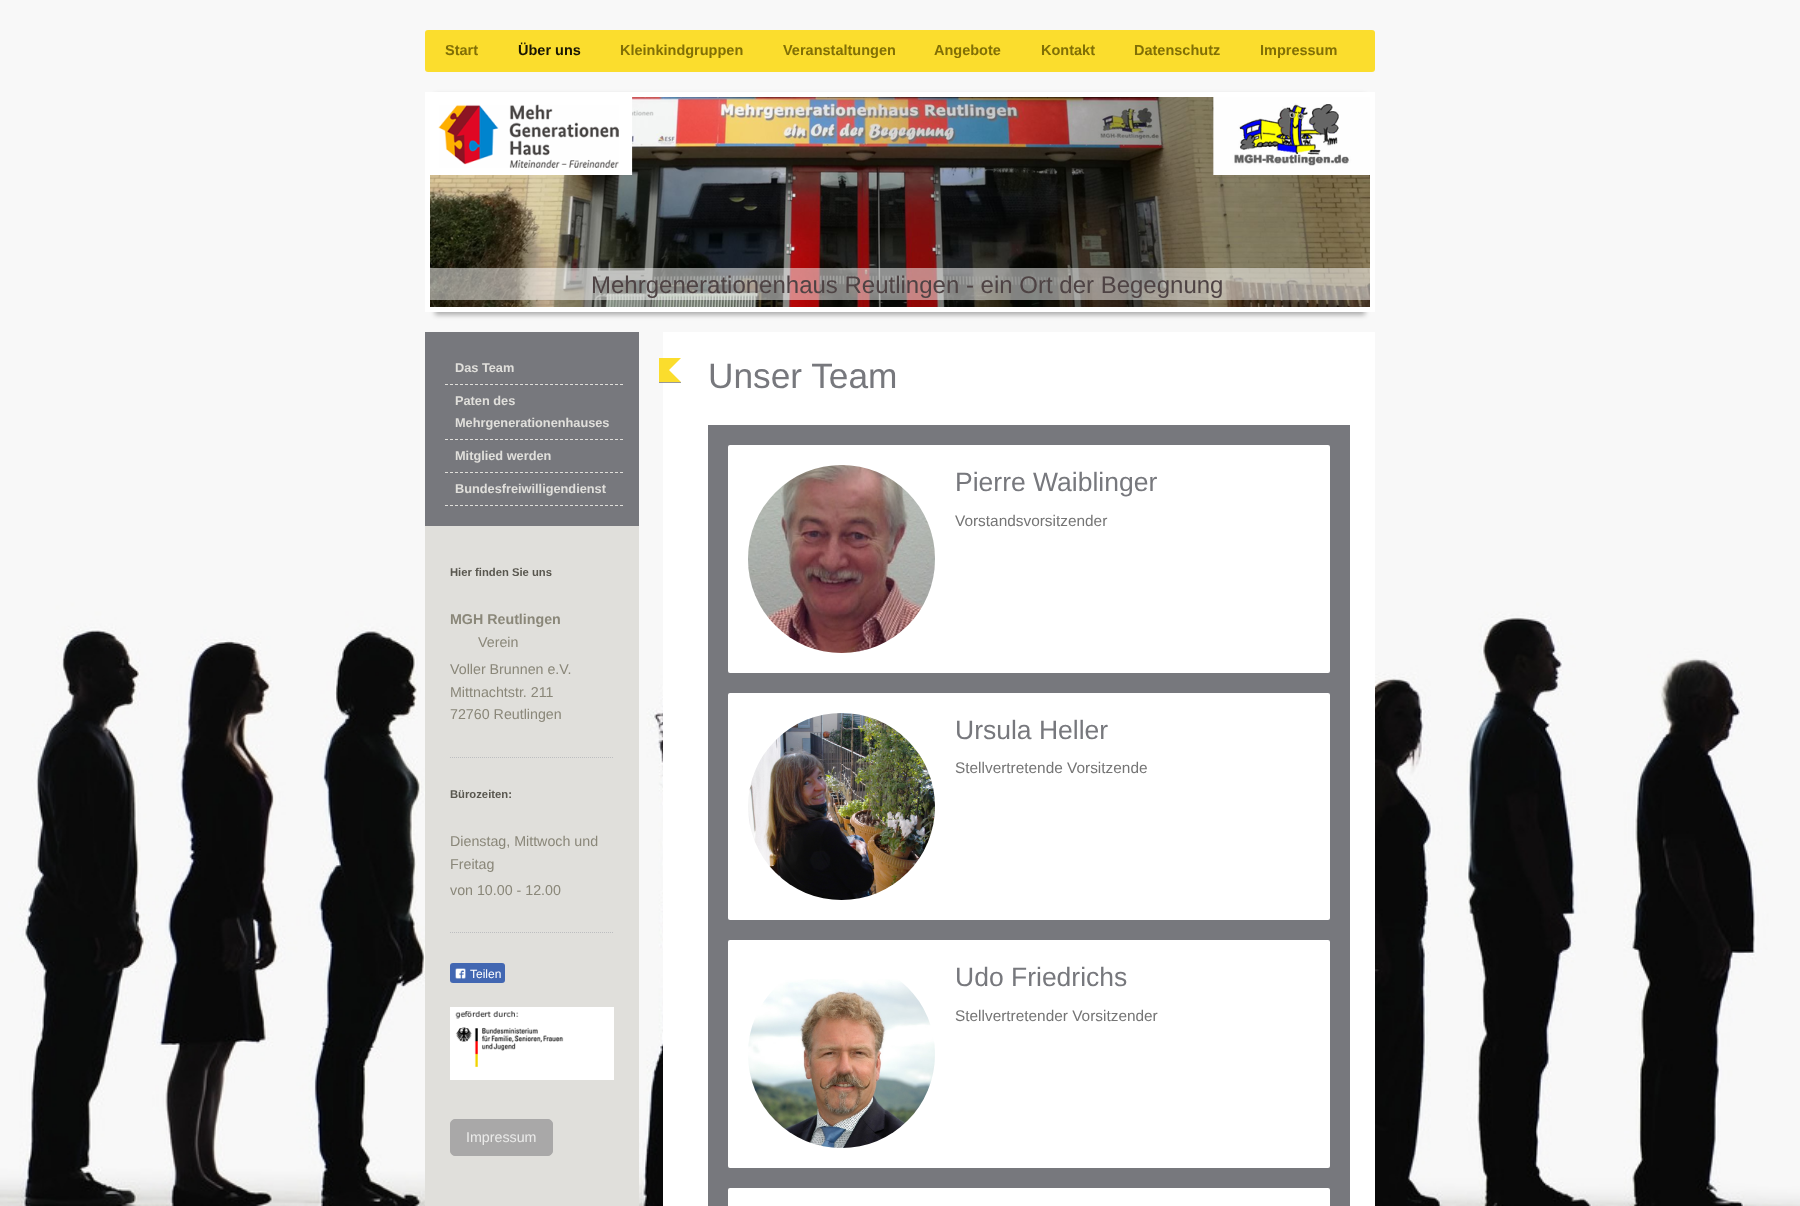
<!DOCTYPE html>
<meta charset="utf-8">
<style>body { margin: 0 } canvas { display: block }</style>
<canvas id="canvas" width="1800" height="1206"></canvas>
<script type="module">
  const canvas = document.getElementById("canvas");
  const ctx = canvas.getContext("2d");
  ctx.miterLimit = 4;
  ctx.fontKerning = "normal";
  async function loadImage(src) {
    const img = new Image();
    img.src = src;
    await img.decode();
    return img;
  }

  ctx.fillStyle = "#ffffff";
  ctx.fillRect(0, 0, 1800, 1206);
  ctx.drawImage(await loadImage("img1.png"), 0, 0, 1800, 1206);
  ctx.fillStyle = "#fbdd2d";
  ctx.beginPath();
  ctx.roundRect(425, 30, 950, 42, 3);
  ctx.fill();
  ctx.font = "bold 14.5px Liberation Sans";
  ctx.fillStyle = "#816f06";
  ctx.fillText("Start", 445, 55);
  ctx.fillStyle = "#191605";
  ctx.fillText("Über uns", 518, 55);
  ctx.fillStyle = "#816f06";
  ctx.fillText("Kleinkindgruppen", 620, 55);
  ctx.fillText("Veranstaltungen", 783, 55);
  ctx.fillText("Angebote", 934, 55);
  ctx.fillText("Kontakt", 1041, 55);
  ctx.fillText("Datenschutz", 1134, 55);
  ctx.fillText("Impressum", 1260, 55);
  ctx.fillStyle = "rgba(0, 0, 0, 0.3)";
  ctx.filter = "blur(2.5px)";
  ctx.beginPath();
  ctx.rect(435, 95, 930, 220);
  ctx.fill();
  ctx.filter = "none";
  ctx.strokeStyle = "#ffffff";
  ctx.lineWidth = 5;
  ctx.strokeRect(427.5, 94.5, 945, 215);
  ctx.drawImage(await loadImage("img2.png"), 430, 97, 940, 210);
  ctx.drawImage(await loadImage("img3.png"), 430, 97, 940, 78);
  ctx.fillStyle = "rgba(255, 255, 255, 0.5)";
  ctx.fillRect(430, 268, 940, 32);
  ctx.font = "24px Liberation Sans";
  ctx.fillStyle = "#4e4344";
  ctx.fillText("Mehrgenerationenhaus Reutlingen - ein Ort der Begegnung", 591, 293);
  ctx.fillStyle = "#77787d";
  ctx.fillRect(425, 332, 214, 194);
  ctx.beginPath();
  ctx.moveTo(445, 384.5);
  ctx.lineTo(623, 384.5);
  ctx.strokeStyle = "#e0dfdb";
  ctx.lineWidth = 1;
  ctx.setLineDash([3, 2]);
  ctx.stroke();
  ctx.font = "bold 12.75px Liberation Sans";
  ctx.fillStyle = "#e0dfdb";
  ctx.fillText("Das Team", 455, 372);
  ctx.beginPath();
  ctx.moveTo(445, 439.5);
  ctx.lineTo(623, 439.5);
  ctx.stroke();
  ctx.fillText("Paten des", 455, 405);
  ctx.fillText("Mehrgenerationenhauses", 455, 427);
  ctx.beginPath();
  ctx.moveTo(445, 472.5);
  ctx.lineTo(623, 472.5);
  ctx.stroke();
  ctx.fillText("Mitglied werden", 455, 460);
  ctx.beginPath();
  ctx.moveTo(445, 505.5);
  ctx.lineTo(623, 505.5);
  ctx.stroke();
  ctx.fillText("Bundesfreiwilligendienst", 455, 493);
  ctx.fillRect(425, 526, 214, 680);
  ctx.font = "bold 11.25px Liberation Sans";
  ctx.fillStyle = "#59574f";
  ctx.fillText("Hier finden Sie uns", 450, 576);
  ctx.font = "bold 14.25px Liberation Sans";
  ctx.fillStyle = "#8a8779";
  ctx.fillText("MGH Reutlingen", 450, 624);
  ctx.font = "14.25px Liberation Sans";
  ctx.fillText("Verein", 478, 647);
  ctx.fillText("Voller Brunnen e.V.", 450, 674);
  ctx.fillText("Mittnachtstr. 211", 450, 697);
  ctx.fillText("72760 Reutlingen", 450, 719);
  ctx.beginPath();
  ctx.moveTo(450, 757.5);
  ctx.lineTo(614, 757.5);
  ctx.strokeStyle = "#bdbec0";
  ctx.setLineDash([1, 1]);
  ctx.stroke();
  ctx.font = "bold 11.25px Liberation Sans";
  ctx.fillStyle = "#59574f";
  ctx.fillText("Bürozeiten:", 450, 798);
  ctx.font = "14.25px Liberation Sans";
  ctx.fillStyle = "#8a8779";
  ctx.fillText("Dienstag, Mittwoch und", 450, 846);
  ctx.fillText("Freitag", 450, 869);
  ctx.fillText("von 10.00 - 12.00", 450, 895);
  ctx.beginPath();
  ctx.moveTo(450, 932.5);
  ctx.lineTo(614, 932.5);
  ctx.stroke();
  ctx.fillStyle = "#4267b2";
  ctx.beginPath();
  ctx.roundRect(450, 963, 55, 20, 3);
  ctx.fill();
  ctx.drawImage(await loadImage("img4.png"), 455, 968, 11, 11);
  ctx.font = "12px Liberation Sans";
  ctx.fillStyle = "#ffffff";
  ctx.fillText("Teilen", 470, 978);
  ctx.drawImage(await loadImage("img5.png"), 450, 1007, 164, 73);
  ctx.fillStyle = "#a9a8a8";
  ctx.beginPath();
  ctx.roundRect(450.5, 1119.5, 102, 36, 4.5);
  ctx.fill();
  ctx.strokeStyle = "#a9a8a8";
  ctx.setLineDash([]);
  ctx.stroke();
  ctx.font = "14.25px Liberation Sans";
  ctx.fillStyle = "#ebebea";
  ctx.fillText("Impressum", 466, 1142);
  ctx.fillStyle = "#ffffff";
  ctx.fillRect(663, 332, 712, 874);
  ctx.fillStyle = "rgba(0, 0, 0, 0.4)";
  ctx.fillRect(659, 382, 22, 1);
  ctx.fillStyle = "#fbdd2d";
  ctx.beginPath();
  ctx.moveTo(659, 358);
  ctx.lineTo(681, 358);
  ctx.lineTo(669, 370);
  ctx.closePath();
  ctx.moveTo(681, 382);
  ctx.lineTo(659, 382);
  ctx.lineTo(669, 370);
  ctx.closePath();
  ctx.fill();
  ctx.fillRect(659, 358, 10, 24);
  ctx.font = "35.25px Liberation Sans";
  ctx.fillStyle = "#77787d";
  ctx.fillText("Unser Team", 708, 388);
  ctx.fillRect(708, 425, 642, 781);
  ctx.fillStyle = "#ffffff";
  ctx.beginPath();
  ctx.roundRect(728, 445, 602, 228, 2);
  ctx.fill();
  ctx.drawImage(await loadImage("img6.png"), 748, 465, 187, 188);
  ctx.font = "26.5px Liberation Sans";
  ctx.fillStyle = "#77787d";
  ctx.fillText("Pierre Waiblinger", 955, 491);
  ctx.font = "15.4px Liberation Sans";
  ctx.fillStyle = "#757575";
  ctx.fillText("Vorstandsvorsitzender", 955, 526);
  ctx.fillStyle = "#ffffff";
  ctx.beginPath();
  ctx.roundRect(728, 693, 602, 227, 2);
  ctx.fill();
  ctx.drawImage(await loadImage("img7.png"), 748, 713, 187, 187);
  ctx.font = "26.5px Liberation Sans";
  ctx.fillStyle = "#77787d";
  ctx.fillText("Ursula Heller", 955, 739);
  ctx.font = "15.4px Liberation Sans";
  ctx.fillStyle = "#757575";
  ctx.fillText("Stellvertretende Vorsitzende", 955, 773);
  ctx.fillStyle = "#ffffff";
  ctx.beginPath();
  ctx.roundRect(728, 940, 602, 228, 2);
  ctx.fill();
  ctx.drawImage(await loadImage("img8.png"), 748, 979, 187, 169);
  ctx.font = "26.5px Liberation Sans";
  ctx.fillStyle = "#77787d";
  ctx.fillText("Udo Friedrichs", 955, 986);
  ctx.font = "15.4px Liberation Sans";
  ctx.fillStyle = "#757575";
  ctx.fillText("Stellvertretender Vorsitzender", 955, 1021);
  ctx.fillStyle = "#ffffff";
  ctx.beginPath();
  ctx.roundRect(728, 1188, 602, 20, 2);
  ctx.fill();
</script>
